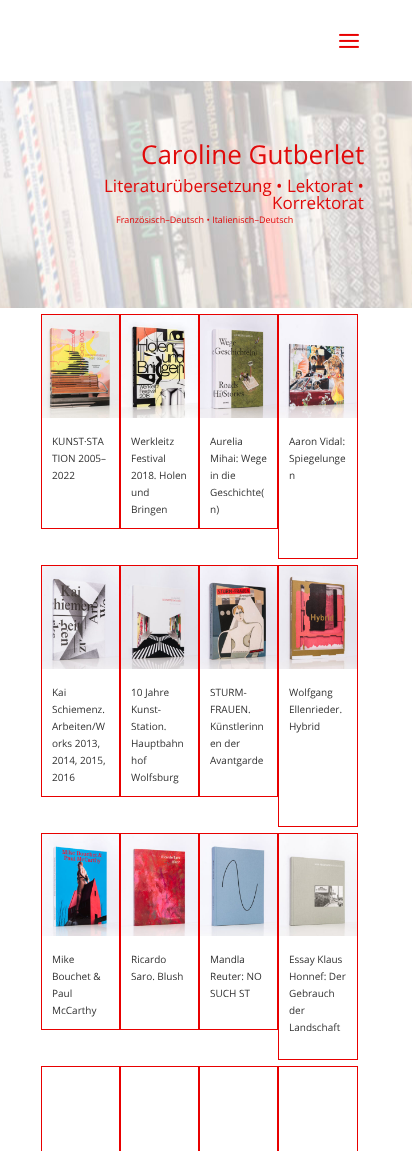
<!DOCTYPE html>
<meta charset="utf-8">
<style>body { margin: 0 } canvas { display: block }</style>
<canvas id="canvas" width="412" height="1151"></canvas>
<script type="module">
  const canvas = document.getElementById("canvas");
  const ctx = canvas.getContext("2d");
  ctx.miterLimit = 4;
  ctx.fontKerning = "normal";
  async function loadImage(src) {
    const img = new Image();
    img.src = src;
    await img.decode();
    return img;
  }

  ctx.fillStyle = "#ffffff";
  ctx.fillRect(0, 0, 412, 1151);
  ctx.drawImage(await loadImage("img1.png"), 339, 33, 20, 15);
  ctx.drawImage(await loadImage("img2.png"), 0, 81, 412, 227);
  ctx.font = "26px Open Sans";
  ctx.fillStyle = "#e10a0a";
  ctx.fillText("Caroline Gutberlet", 141, 164);
  ctx.font = "17px Open Sans";
  ctx.fillText("Literaturübersetzung • Lektorat •", 104, 192);
  ctx.fillText("Korrektorat", 272, 209);
  ctx.font = "9px Open Sans";
  ctx.fillText("Französisch–Deutsch • Italienisch–Deutsch", 116, 223);
  ctx.strokeStyle = "#e80000";
  ctx.strokeRect(41.5, 314.5, 78, 214);
  ctx.drawImage(await loadImage("img3.png"), 42, 315, 77, 103);
  ctx.font = "10px Open Sans";
  ctx.fillStyle = "#333333";
  ctx.fillText("KUNST·STA", 52, 445);
  ctx.fillText("TION 2005–", 52, 462);
  ctx.fillText("2022", 52, 479);
  ctx.strokeRect(120.5, 314.5, 78, 214);
  ctx.drawImage(await loadImage("img4.png"), 121, 315, 77, 103);
  ctx.fillText("Werkleitz", 131, 445);
  ctx.fillText("Festival", 131, 462);
  ctx.fillText("2018. Holen", 131, 479);
  ctx.fillText("und", 131, 496);
  ctx.fillText("Bringen", 131, 513);
  ctx.strokeRect(199.5, 314.5, 78, 214);
  ctx.drawImage(await loadImage("img5.png"), 200, 315, 77, 103);
  ctx.fillText("Aurelia", 210, 445);
  ctx.fillText("Mihai: Wege", 210, 462);
  ctx.fillText("in die", 210, 479);
  ctx.fillText("Geschichte(", 210, 496);
  ctx.fillText("n)", 210, 513);
  ctx.strokeRect(278.5, 314.5, 79, 244);
  ctx.drawImage(await loadImage("img6.png"), 279, 315, 78, 103);
  ctx.fillText("Aaron Vidal:", 289, 445);
  ctx.fillText("Spiegelunge", 289, 462);
  ctx.fillText("n", 289, 479);
  ctx.strokeRect(41.5, 565.5, 78, 231);
  ctx.drawImage(await loadImage("img7.png"), 42, 566, 77, 103);
  ctx.fillText("Kai", 52, 696);
  ctx.fillText("Schiemenz.", 52, 713);
  ctx.fillText("Arbeiten/W", 52, 730);
  ctx.fillText("orks 2013,", 52, 747);
  ctx.fillText("2014, 2015,", 52, 764);
  ctx.fillText("2016", 52, 781);
  ctx.strokeRect(120.5, 565.5, 78, 231);
  ctx.drawImage(await loadImage("img8.png"), 121, 566, 77, 103);
  ctx.fillText("10 Jahre", 131, 696);
  ctx.fillText("Kunst-", 131, 713);
  ctx.fillText("Station.", 131, 730);
  ctx.fillText("Hauptbahn", 131, 747);
  ctx.fillText("hof", 131, 764);
  ctx.fillText("Wolfsburg", 131, 781);
  ctx.strokeRect(199.5, 565.5, 78, 231);
  ctx.drawImage(await loadImage("img9.png"), 200, 566, 77, 103);
  ctx.fillText("STURM-", 210, 696);
  ctx.fillText("FRAUEN.", 210, 713);
  ctx.fillText("Künstlerinn", 210, 730);
  ctx.fillText("en der", 210, 747);
  ctx.fillText("Avantgarde", 210, 764);
  ctx.strokeRect(278.5, 565.5, 79, 261);
  ctx.drawImage(await loadImage("img10.png"), 279, 566, 78, 103);
  ctx.fillText("Wolfgang", 289, 696);
  ctx.fillText("Ellenrieder.", 289, 713);
  ctx.fillText("Hybrid", 289, 730);
  ctx.strokeRect(41.5, 833.5, 78, 196);
  ctx.drawImage(await loadImage("img11.png"), 42, 834, 77, 102);
  ctx.fillText("Mike", 52, 963);
  ctx.fillText("Bouchet &", 52, 980);
  ctx.fillText("Paul", 52, 997);
  ctx.fillText("McCarthy", 52, 1014);
  ctx.strokeRect(120.5, 833.5, 78, 196);
  ctx.drawImage(await loadImage("img12.png"), 121, 834, 77, 102);
  ctx.fillText("Ricardo", 131, 963);
  ctx.fillText("Saro. Blush", 131, 980);
  ctx.strokeRect(199.5, 833.5, 78, 196);
  ctx.drawImage(await loadImage("img13.png"), 200, 834, 77, 102);
  ctx.fillText("Mandla", 210, 963);
  ctx.fillText("Reuter: NO", 210, 980);
  ctx.fillText("SUCH ST", 210, 997);
  ctx.strokeRect(278.5, 833.5, 79, 226);
  ctx.drawImage(await loadImage("img14.png"), 279, 834, 78, 102);
  ctx.fillText("Essay Klaus", 289, 963);
  ctx.fillText("Honnef: Der", 289, 980);
  ctx.fillText("Gebrauch", 289, 997);
  ctx.fillText("der", 289, 1014);
  ctx.fillText("Landschaft", 289, 1031);
  ctx.strokeRect(41.5, 1066.5, 78, 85);
  ctx.strokeRect(120.5, 1066.5, 78, 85);
  ctx.strokeRect(199.5, 1066.5, 78, 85);
  ctx.strokeRect(278.5, 1066.5, 79, 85);
</script>
